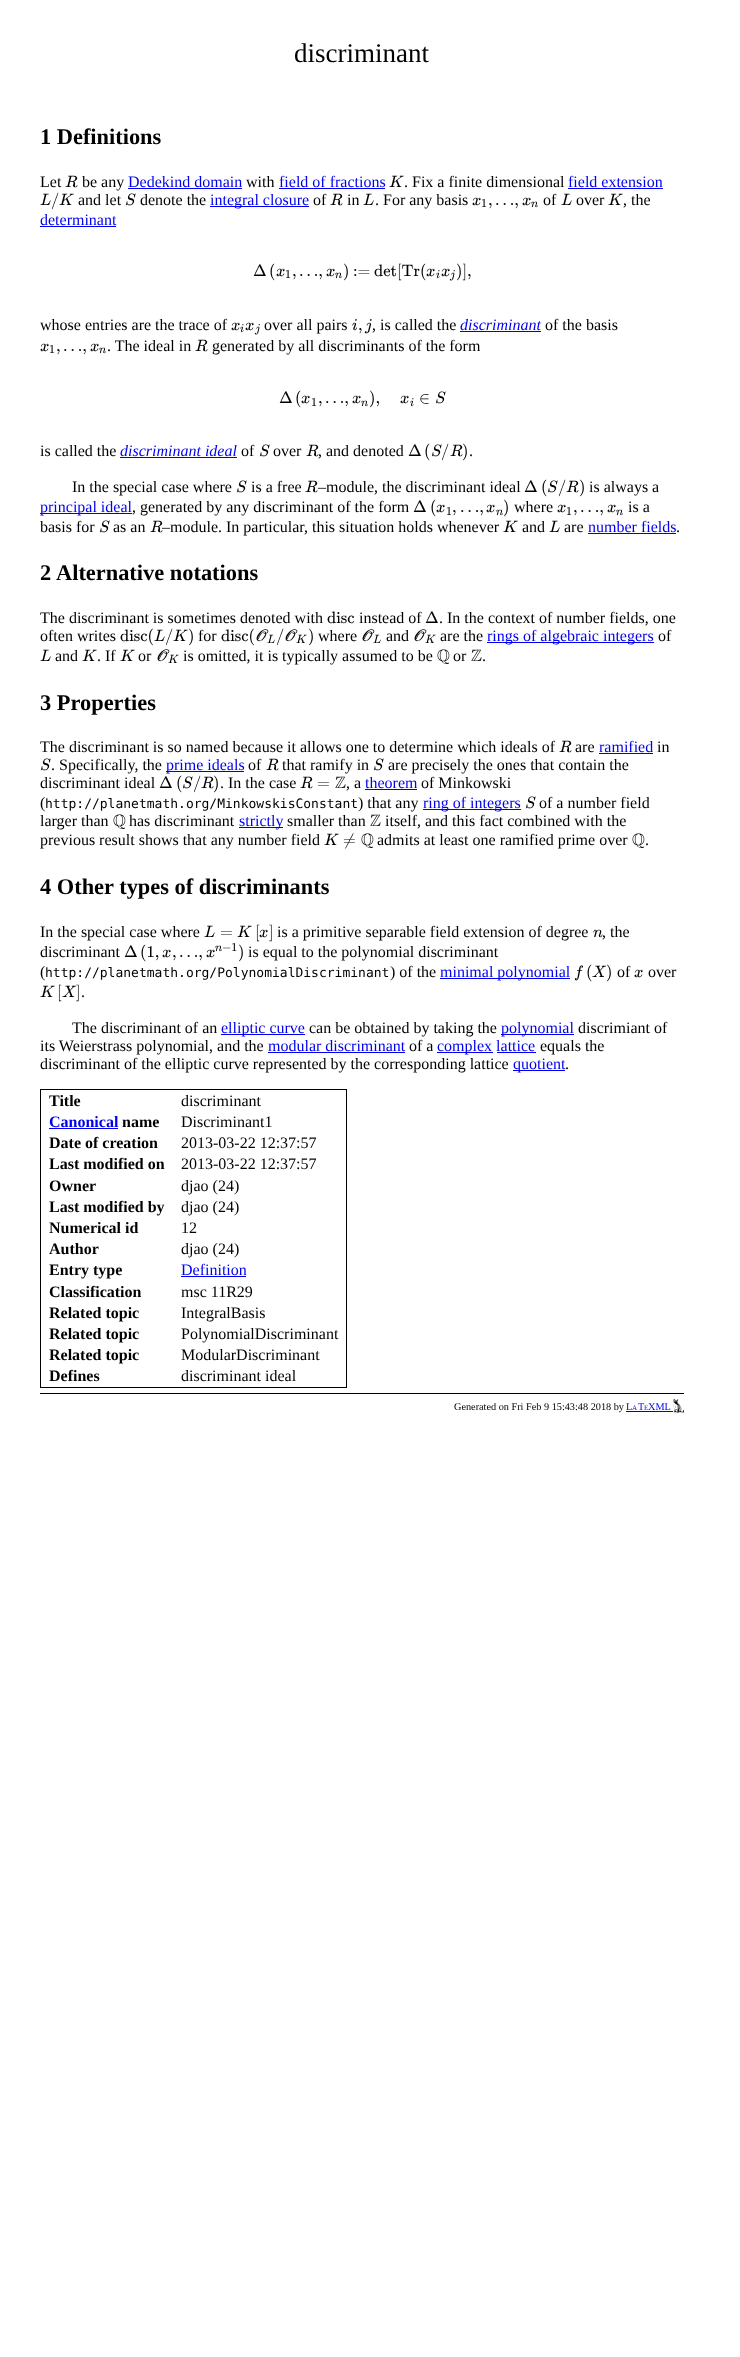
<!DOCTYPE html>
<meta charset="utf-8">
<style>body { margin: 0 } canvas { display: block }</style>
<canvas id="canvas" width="740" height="2357"></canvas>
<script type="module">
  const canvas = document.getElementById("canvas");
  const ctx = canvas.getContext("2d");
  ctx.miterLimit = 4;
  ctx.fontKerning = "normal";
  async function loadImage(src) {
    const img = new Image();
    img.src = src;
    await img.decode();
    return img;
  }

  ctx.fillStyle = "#ffffff";
  ctx.fillRect(0, 0, 740, 2357);
  ctx.font = "27px Liberation Serif";
  ctx.fillStyle = "#000000";
  ctx.fillText("discriminant", 294, 62);
  ctx.font = "bold 22.4px Liberation Serif";
  ctx.fillText("1 Definitions", 40, 144);
  ctx.font = "16px Liberation Serif";
  ctx.fillText("Let", 40, 187);
  ctx.font = "italic 16.5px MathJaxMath";
  ctx.fillText("R", 65, 187);
  ctx.font = "16px Liberation Serif";
  ctx.fillText("be any", 82, 187);
  ctx.fillStyle = "#0000ee";
  ctx.fillText("Dedekind domain", 128, 187);
  ctx.fillRect(128, 188, 114, 1);
  ctx.fillStyle = "#000000";
  ctx.fillText("with", 246, 187);
  ctx.fillStyle = "#0000ee";
  ctx.fillText("field of fractions", 279, 187);
  ctx.fillRect(279, 188, 106, 1);
  ctx.font = "italic 16.5px MathJaxMath";
  ctx.fillStyle = "#000000";
  ctx.fillText("K", 389, 187);
  ctx.font = "16px Liberation Serif";
  ctx.fillText(". Fix a finite dimensional", 404, 187);
  ctx.fillStyle = "#0000ee";
  ctx.fillText("field extension", 568, 187);
  ctx.fillRect(568, 188, 95, 1);
  ctx.font = "italic 16.5px MathJaxMath";
  ctx.fillStyle = "#000000";
  ctx.fillText("L", 40, 205);
  ctx.font = "16.5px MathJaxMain";
  ctx.fillText("/", 51, 205);
  ctx.font = "italic 16.5px MathJaxMath";
  ctx.fillText("K", 59, 205);
  ctx.font = "16px Liberation Serif";
  ctx.fillText("and let", 78, 205);
  ctx.font = "italic 16.5px MathJaxMath";
  ctx.fillText("S", 125, 205);
  ctx.font = "16px Liberation Serif";
  ctx.fillText("denote the", 140, 205);
  ctx.fillStyle = "#0000ee";
  ctx.fillRect(210, 206, 99, 1);
  ctx.fillText("integral closure", 210, 205);
  ctx.fillStyle = "#000000";
  ctx.fillText("of", 313, 205);
  ctx.font = "italic 16.5px MathJaxMath";
  ctx.fillText("R", 330, 205);
  ctx.font = "16px Liberation Serif";
  ctx.fillText("in", 347, 205);
  ctx.font = "italic 16.5px MathJaxMath";
  ctx.fillText("L", 363, 205);
  ctx.font = "16px Liberation Serif";
  ctx.fillText(". For any basis", 375, 205);
  ctx.font = "italic 16.5px MathJaxMath";
  ctx.fillText("x", 472, 205);
  ctx.font = "12px MathJaxMain";
  ctx.fillText("1", 481, 207);
  ctx.font = "16.5px MathJaxMain";
  ctx.fillText(",", 488, 205);
  ctx.fillText("…,", 495, 205);
  ctx.font = "italic 16.5px MathJaxMath";
  ctx.fillText("x", 522, 205);
  ctx.font = "italic 12px MathJaxMath";
  ctx.fillText("n", 531, 207);
  ctx.font = "16px Liberation Serif";
  ctx.fillText("of", 543, 205);
  ctx.font = "italic 16.5px MathJaxMath";
  ctx.fillText("L", 561, 205);
  ctx.font = "16px Liberation Serif";
  ctx.fillText("over", 576, 205);
  ctx.font = "italic 16.5px MathJaxMath";
  ctx.fillText("K", 608, 205);
  ctx.font = "16px Liberation Serif";
  ctx.fillText(", the", 623, 205);
  ctx.fillStyle = "#0000ee";
  ctx.fillText("determinant", 40, 225);
  ctx.fillRect(40, 226, 76, 1);
  ctx.font = "16.5px MathJaxMain";
  ctx.fillStyle = "#000000";
  ctx.fillText("Δ", 253, 276);
  ctx.fillText("(", 269, 276);
  ctx.font = "italic 16.5px MathJaxMath";
  ctx.fillText("x", 276, 276);
  ctx.font = "12px MathJaxMain";
  ctx.fillText("1", 285, 278);
  ctx.font = "16.5px MathJaxMain";
  ctx.fillText(",", 292, 276);
  ctx.fillText("…,", 299, 276);
  ctx.font = "italic 16.5px MathJaxMath";
  ctx.fillText("x", 326, 276);
  ctx.font = "italic 12px MathJaxMath";
  ctx.fillText("n", 335, 278);
  ctx.font = "16.5px MathJaxMain";
  ctx.fillText(")", 343, 276);
  ctx.fillText(":=", 353, 276);
  ctx.fillText("det[Tr(", 374, 276);
  ctx.font = "italic 16.5px MathJaxMath";
  ctx.fillText("x", 426, 276);
  ctx.font = "italic 12px MathJaxMath";
  ctx.fillText("i", 436, 278);
  ctx.font = "italic 16.5px MathJaxMath";
  ctx.fillText("x", 441, 276);
  ctx.font = "italic 12px MathJaxMath";
  ctx.fillText("j", 450, 278);
  ctx.font = "16.5px MathJaxMain";
  ctx.fillText(")],", 456, 276);
  ctx.font = "16px Liberation Serif";
  ctx.fillText("whose entries are the trace of", 40, 330);
  ctx.font = "italic 16.5px MathJaxMath";
  ctx.fillText("x", 231, 330);
  ctx.font = "italic 12px MathJaxMath";
  ctx.fillText("i", 240, 332);
  ctx.font = "italic 16.5px MathJaxMath";
  ctx.fillText("x", 245, 330);
  ctx.font = "italic 12px MathJaxMath";
  ctx.fillText("j", 255, 332);
  ctx.font = "16px Liberation Serif";
  ctx.fillText("over all pairs", 264, 330);
  ctx.font = "italic 16.5px MathJaxMath";
  ctx.fillText("i", 352, 330);
  ctx.font = "16.5px MathJaxMain";
  ctx.fillText(",", 358, 330);
  ctx.font = "italic 16.5px MathJaxMath";
  ctx.fillText("j", 365, 330);
  ctx.font = "16px Liberation Serif";
  ctx.fillText(", is called the", 372, 330);
  ctx.font = "italic 16px Liberation Serif";
  ctx.fillStyle = "#0000ee";
  ctx.fillText("discriminant", 460, 330);
  ctx.fillRect(460, 331, 81, 1);
  ctx.font = "16px Liberation Serif";
  ctx.fillStyle = "#000000";
  ctx.fillText("of the basis", 545, 330);
  ctx.font = "italic 16.5px MathJaxMath";
  ctx.fillText("x", 40, 351);
  ctx.font = "12px MathJaxMain";
  ctx.fillText("1", 49, 353);
  ctx.font = "16.5px MathJaxMain";
  ctx.fillText(",", 56, 351);
  ctx.fillText("…,", 63, 351);
  ctx.font = "italic 16.5px MathJaxMath";
  ctx.fillText("x", 90, 351);
  ctx.font = "italic 12px MathJaxMath";
  ctx.fillText("n", 99, 353);
  ctx.font = "16px Liberation Serif";
  ctx.fillText(". The ideal in", 107, 351);
  ctx.font = "italic 16.5px MathJaxMath";
  ctx.fillText("R", 195, 351);
  ctx.font = "16px Liberation Serif";
  ctx.fillText("generated by all discriminants of the form", 212, 351);
  ctx.font = "16.5px MathJaxMain";
  ctx.fillText("Δ", 279, 403);
  ctx.fillText("(", 295, 403);
  ctx.font = "italic 16.5px MathJaxMath";
  ctx.fillText("x", 301, 403);
  ctx.font = "12px MathJaxMain";
  ctx.fillText("1", 311, 406);
  ctx.font = "16.5px MathJaxMain";
  ctx.fillText(",", 318, 403);
  ctx.fillText("…,", 325, 403);
  ctx.font = "italic 16.5px MathJaxMath";
  ctx.fillText("x", 352, 403);
  ctx.font = "italic 12px MathJaxMath";
  ctx.fillText("n", 361, 406);
  ctx.font = "16.5px MathJaxMain";
  ctx.fillText("),", 369, 403);
  ctx.font = "italic 16.5px MathJaxMath";
  ctx.fillText("x", 400, 403);
  ctx.font = "italic 12px MathJaxMath";
  ctx.fillText("i", 410, 406);
  ctx.font = "16.5px MathJaxMain";
  ctx.fillText("∈", 419, 403);
  ctx.font = "italic 16.5px MathJaxMath";
  ctx.fillText("S", 435, 403);
  ctx.font = "16px Liberation Serif";
  ctx.fillText("is called the", 40, 456);
  ctx.font = "italic 16px Liberation Serif";
  ctx.fillStyle = "#0000ee";
  ctx.fillText("discriminant ideal", 120, 456);
  ctx.fillRect(120, 457, 117, 1);
  ctx.font = "16px Liberation Serif";
  ctx.fillStyle = "#000000";
  ctx.fillText("of", 241, 456);
  ctx.font = "italic 16.5px MathJaxMath";
  ctx.fillText("S", 259, 456);
  ctx.font = "16px Liberation Serif";
  ctx.fillText("over", 273, 456);
  ctx.fillText(", and denoted", 318, 456);
  ctx.font = "italic 16.5px MathJaxMath";
  ctx.fillText("R", 306, 456);
  ctx.font = "16.5px MathJaxMain";
  ctx.fillText("Δ", 408, 456);
  ctx.fillText("(", 424, 456);
  ctx.font = "italic 16.5px MathJaxMath";
  ctx.fillText("S", 431, 456);
  ctx.font = "16.5px MathJaxMain";
  ctx.fillText("/", 441, 456);
  ctx.font = "italic 16.5px MathJaxMath";
  ctx.fillText("R", 450, 456);
  ctx.font = "16.5px MathJaxMain";
  ctx.fillText(")", 462, 456);
  ctx.font = "16px Liberation Serif";
  ctx.fillText(".", 469, 456);
  ctx.fillText("In the special case where", 72, 492);
  ctx.font = "italic 16.5px MathJaxMath";
  ctx.fillText("S", 236, 492);
  ctx.font = "16px Liberation Serif";
  ctx.fillText("is a free", 251, 492);
  ctx.fillText("–module, the discriminant ideal", 318, 492);
  ctx.font = "italic 16.5px MathJaxMath";
  ctx.fillText("R", 305, 492);
  ctx.font = "16.5px MathJaxMain";
  ctx.fillText("Δ", 524, 492);
  ctx.fillText("(", 541, 492);
  ctx.font = "italic 16.5px MathJaxMath";
  ctx.fillText("S", 547, 492);
  ctx.font = "16.5px MathJaxMain";
  ctx.fillText("/", 558, 492);
  ctx.font = "italic 16.5px MathJaxMath";
  ctx.fillText("R", 566, 492);
  ctx.font = "16.5px MathJaxMain";
  ctx.fillText(")", 579, 492);
  ctx.font = "16px Liberation Serif";
  ctx.fillText("is always a", 589, 492);
  ctx.fillStyle = "#0000ee";
  ctx.fillRect(40, 513, 92, 1);
  ctx.fillText("principal ideal", 40, 512);
  ctx.fillStyle = "#000000";
  ctx.fillText(", generated by any discriminant of the form", 132, 512);
  ctx.font = "16.5px MathJaxMain";
  ctx.fillText("Δ", 413, 512);
  ctx.fillText("(", 430, 512);
  ctx.font = "italic 16.5px MathJaxMath";
  ctx.fillText("x", 436, 512);
  ctx.font = "12px MathJaxMain";
  ctx.fillText("1", 446, 515);
  ctx.font = "16.5px MathJaxMain";
  ctx.fillText(",", 452, 512);
  ctx.fillText("…,", 460, 512);
  ctx.font = "italic 16.5px MathJaxMath";
  ctx.fillText("x", 486, 512);
  ctx.font = "italic 12px MathJaxMath";
  ctx.fillText("n", 496, 515);
  ctx.font = "16.5px MathJaxMain";
  ctx.fillText(")", 503, 512);
  ctx.font = "16px Liberation Serif";
  ctx.fillText("where", 514, 512);
  ctx.font = "italic 16.5px MathJaxMath";
  ctx.fillText("x", 557, 512);
  ctx.font = "12px MathJaxMain";
  ctx.fillText("1", 566, 515);
  ctx.font = "16.5px MathJaxMain";
  ctx.fillText(",", 573, 512);
  ctx.fillText("…,", 580, 512);
  ctx.font = "italic 16.5px MathJaxMath";
  ctx.fillText("x", 607, 512);
  ctx.font = "italic 12px MathJaxMath";
  ctx.fillText("n", 616, 515);
  ctx.font = "16px Liberation Serif";
  ctx.fillText("is a", 628, 512);
  ctx.fillText("basis for", 40, 532);
  ctx.font = "italic 16.5px MathJaxMath";
  ctx.fillText("S", 99, 532);
  ctx.font = "16px Liberation Serif";
  ctx.fillText("as an", 113, 532);
  ctx.fillText("–module. In particular, this situation holds whenever", 162, 532);
  ctx.font = "italic 16.5px MathJaxMath";
  ctx.fillText("R", 150, 532);
  ctx.fillText("K", 503, 532);
  ctx.font = "16px Liberation Serif";
  ctx.fillText("and", 522, 532);
  ctx.font = "italic 16.5px MathJaxMath";
  ctx.fillText("L", 549, 532);
  ctx.font = "16px Liberation Serif";
  ctx.fillText("are", 564, 532);
  ctx.fillStyle = "#0000ee";
  ctx.fillText("number fields", 588, 532);
  ctx.fillRect(588, 533, 88, 1);
  ctx.fillStyle = "#000000";
  ctx.fillText(".", 676, 532);
  ctx.font = "bold 22.4px Liberation Serif";
  ctx.fillText("2", 40, 580);
  ctx.fillText("Alternative notations", 56, 580);
  ctx.font = "16px Liberation Serif";
  ctx.fillText("The discriminant is sometimes denoted with", 40, 623);
  ctx.font = "16.5px MathJaxMain";
  ctx.fillText("disc", 327, 623);
  ctx.font = "16px Liberation Serif";
  ctx.fillText("instead of", 359, 623);
  ctx.font = "16.5px MathJaxMain";
  ctx.fillText("Δ", 425, 623);
  ctx.font = "16px Liberation Serif";
  ctx.fillText(". In the context of number fields, one", 439, 623);
  ctx.fillText("often writes", 40, 641);
  ctx.font = "16.5px MathJaxMain";
  ctx.fillText("disc(", 120, 641);
  ctx.font = "italic 16.5px MathJaxMath";
  ctx.fillText("L", 154, 641);
  ctx.font = "16.5px MathJaxMain";
  ctx.fillText("/", 165, 641);
  ctx.font = "italic 16.5px MathJaxMath";
  ctx.fillText("K", 173, 641);
  ctx.font = "16.5px MathJaxMain";
  ctx.fillText(")", 188, 641);
  ctx.font = "16px Liberation Serif";
  ctx.fillText("for", 198, 641);
  ctx.font = "16.5px MathJaxMain";
  ctx.fillText("disc(", 221, 641);
  ctx.font = "16.5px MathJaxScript";
  ctx.fillText("O", 255, 641);
  ctx.font = "italic 12px MathJaxMath";
  ctx.fillText("L", 267, 643);
  ctx.font = "16.5px MathJaxMain";
  ctx.fillText("/", 276, 641);
  ctx.font = "16.5px MathJaxScript";
  ctx.fillText("O", 284, 641);
  ctx.font = "italic 12px MathJaxMath";
  ctx.fillText("K", 296, 643);
  ctx.font = "16.5px MathJaxMain";
  ctx.fillText(")", 308, 641);
  ctx.font = "16px Liberation Serif";
  ctx.fillText("where", 318, 641);
  ctx.font = "16.5px MathJaxScript";
  ctx.fillText("O", 361, 641);
  ctx.font = "italic 12px MathJaxMath";
  ctx.fillText("L", 373, 643);
  ctx.font = "16px Liberation Serif";
  ctx.fillText("and", 386, 641);
  ctx.font = "16.5px MathJaxScript";
  ctx.fillText("O", 413, 641);
  ctx.font = "italic 12px MathJaxMath";
  ctx.fillText("K", 425, 643);
  ctx.font = "16px Liberation Serif";
  ctx.fillText("are the", 440, 641);
  ctx.fillStyle = "#0000ee";
  ctx.fillRect(487, 642, 167, 1);
  ctx.fillText("rings of algebraic integers", 487, 641);
  ctx.fillStyle = "#000000";
  ctx.fillText("of", 658, 641);
  ctx.font = "italic 16.5px MathJaxMath";
  ctx.fillText("L", 40, 661);
  ctx.font = "16px Liberation Serif";
  ctx.fillText("and", 55, 661);
  ctx.font = "italic 16.5px MathJaxMath";
  ctx.fillText("K", 82, 661);
  ctx.font = "16px Liberation Serif";
  ctx.fillText(". If", 97, 661);
  ctx.font = "italic 16.5px MathJaxMath";
  ctx.fillText("K", 120, 661);
  ctx.font = "16px Liberation Serif";
  ctx.fillText("or", 138, 661);
  ctx.font = "16.5px MathJaxScript";
  ctx.fillText("O", 156, 661);
  ctx.font = "italic 12px MathJaxMath";
  ctx.fillText("K", 168, 663);
  ctx.font = "16px Liberation Serif";
  ctx.fillText("is omitted, it is typically assumed to be", 183, 661);
  ctx.font = "16.5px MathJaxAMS";
  ctx.fillText("Q", 437, 661);
  ctx.font = "16px Liberation Serif";
  ctx.fillText("or", 453, 661);
  ctx.font = "16.5px MathJaxAMS";
  ctx.fillText("Z", 471, 661);
  ctx.font = "16px Liberation Serif";
  ctx.fillText(".", 482, 661);
  ctx.font = "bold 22.4px Liberation Serif";
  ctx.fillText("3 Properties", 40, 710);
  ctx.font = "16px Liberation Serif";
  ctx.fillText("The discriminant is so named because it allows one to determine which ideals of", 40, 752);
  ctx.font = "italic 16.5px MathJaxMath";
  ctx.fillText("R", 559, 752);
  ctx.font = "16px Liberation Serif";
  ctx.fillText("are", 575, 752);
  ctx.fillStyle = "#0000ee";
  ctx.fillText("ramified", 599, 752);
  ctx.fillRect(599, 753, 54, 1);
  ctx.fillStyle = "#000000";
  ctx.fillText("in", 657, 752);
  ctx.font = "italic 16.5px MathJaxMath";
  ctx.fillText("S", 40, 770);
  ctx.font = "16px Liberation Serif";
  ctx.fillText(". Specifically, the", 51, 770);
  ctx.fillStyle = "#0000ee";
  ctx.fillRect(166, 771, 78, 1);
  ctx.fillText("prime ideals", 166, 770);
  ctx.fillStyle = "#000000";
  ctx.fillText("of", 248, 770);
  ctx.font = "italic 16.5px MathJaxMath";
  ctx.fillText("R", 266, 770);
  ctx.font = "16px Liberation Serif";
  ctx.fillText("that ramify in", 282, 770);
  ctx.font = "italic 16.5px MathJaxMath";
  ctx.fillText("S", 373, 770);
  ctx.font = "16px Liberation Serif";
  ctx.fillText("are precisely the ones that contain the", 388, 770);
  ctx.fillText("discriminant ideal", 40, 788);
  ctx.font = "16.5px MathJaxMain";
  ctx.fillText("Δ", 159, 788);
  ctx.fillText("(", 176, 788);
  ctx.font = "italic 16.5px MathJaxMath";
  ctx.fillText("S", 182, 788);
  ctx.font = "16.5px MathJaxMain";
  ctx.fillText("/", 193, 788);
  ctx.font = "italic 16.5px MathJaxMath";
  ctx.fillText("R", 201, 788);
  ctx.font = "16.5px MathJaxMain";
  ctx.fillText(")", 213, 788);
  ctx.font = "16px Liberation Serif";
  ctx.fillText(". In the case", 220, 788);
  ctx.font = "italic 16.5px MathJaxMath";
  ctx.fillText("R", 300, 788);
  ctx.font = "16.5px MathJaxMain";
  ctx.fillText("=", 317, 788);
  ctx.font = "16.5px MathJaxAMS";
  ctx.fillText("Z", 335, 788);
  ctx.font = "16px Liberation Serif";
  ctx.fillText(", a", 346, 788);
  ctx.fillStyle = "#0000ee";
  ctx.fillText("theorem", 365, 788);
  ctx.fillRect(365, 789, 52, 1);
  ctx.fillStyle = "#000000";
  ctx.fillText("of Minkowski", 421, 788);
  ctx.fillText("(", 40, 808);
  ctx.font = "13px DejaVu Sans Mono";
  ctx.fillText("http://planetmath.org/MinkowskisConstant", 45, 808);
  ctx.font = "16px Liberation Serif";
  ctx.fillText(") that any", 358, 808);
  ctx.fillStyle = "#0000ee";
  ctx.fillRect(423, 809, 98, 1);
  ctx.fillText("ring of integers", 423, 808);
  ctx.font = "italic 16.5px MathJaxMath";
  ctx.fillStyle = "#000000";
  ctx.fillText("S", 525, 808);
  ctx.font = "16px Liberation Serif";
  ctx.fillText("of a number field", 539, 808);
  ctx.fillText("larger than", 40, 826);
  ctx.font = "16.5px MathJaxAMS";
  ctx.fillText("Q", 113, 826);
  ctx.font = "16px Liberation Serif";
  ctx.fillText("has discriminant", 129, 826);
  ctx.fillStyle = "#0000ee";
  ctx.fillRect(239, 827, 44, 1);
  ctx.fillText("strictly", 239, 826);
  ctx.fillStyle = "#000000";
  ctx.fillText("smaller than", 287, 826);
  ctx.font = "16.5px MathJaxAMS";
  ctx.fillText("Z", 370, 826);
  ctx.font = "16px Liberation Serif";
  ctx.fillText("itself, and this fact combined with the", 385, 826);
  ctx.fillText("previous result shows that any number field", 40, 845);
  ctx.font = "italic 16.5px MathJaxMath";
  ctx.fillText("K", 324, 845);
  ctx.font = "16.5px MathJaxMain";
  ctx.fillText("≠", 343, 845);
  ctx.font = "16.5px MathJaxAMS";
  ctx.fillText("Q", 361, 845);
  ctx.font = "16px Liberation Serif";
  ctx.fillText("admits at least one ramified prime over", 377, 845);
  ctx.font = "16.5px MathJaxAMS";
  ctx.fillText("Q", 632, 845);
  ctx.font = "16px Liberation Serif";
  ctx.fillText(".", 645, 845);
  ctx.font = "bold 22.4px Liberation Serif";
  ctx.fillText("4 Other types of discriminants", 40, 894);
  ctx.font = "16px Liberation Serif";
  ctx.fillText("In the special case where", 40, 937);
  ctx.font = "italic 16.5px MathJaxMath";
  ctx.fillText("L", 204, 937);
  ctx.font = "16.5px MathJaxMain";
  ctx.fillText("=", 220, 937);
  ctx.font = "italic 16.5px MathJaxMath";
  ctx.fillText("K", 237, 937);
  ctx.font = "16.5px MathJaxMain";
  ctx.fillText("[", 255, 937);
  ctx.font = "italic 16.5px MathJaxMath";
  ctx.fillText("x", 259, 937);
  ctx.font = "16.5px MathJaxMain";
  ctx.fillText("]", 269, 937);
  ctx.font = "16px Liberation Serif";
  ctx.fillText("is a primitive separable field extension of degree", 277, 937);
  ctx.font = "italic 16.5px MathJaxMath";
  ctx.fillText("n", 593, 937);
  ctx.font = "16px Liberation Serif";
  ctx.fillText(", the", 602, 937);
  ctx.fillText("discriminant", 40, 957);
  ctx.font = "16.5px MathJaxMain";
  ctx.fillText("Δ", 124, 957);
  ctx.fillText("(1,", 140, 957);
  ctx.font = "italic 16.5px MathJaxMath";
  ctx.fillText("x", 162, 957);
  ctx.font = "16.5px MathJaxMain";
  ctx.fillText(",", 172, 957);
  ctx.fillText("…,", 179, 957);
  ctx.font = "italic 12px MathJaxMath";
  ctx.fillText("n", 215, 951);
  ctx.font = "12px MathJaxMain";
  ctx.fillText("−1", 222, 951);
  ctx.font = "italic 16.5px MathJaxMath";
  ctx.fillText("x", 206, 957);
  ctx.font = "16.5px MathJaxMain";
  ctx.fillText(")", 238, 957);
  ctx.font = "16px Liberation Serif";
  ctx.fillText("is equal to the polynomial discriminant", 248, 957);
  ctx.fillText("(", 40, 977);
  ctx.font = "13px DejaVu Sans Mono";
  ctx.fillText("http://planetmath.org/PolynomialDiscriminant", 45, 977);
  ctx.font = "16px Liberation Serif";
  ctx.fillText(") of the", 390, 977);
  ctx.fillStyle = "#0000ee";
  ctx.fillRect(440, 978, 130, 1);
  ctx.fillText("minimal polynomial", 440, 977);
  ctx.font = "italic 16.5px MathJaxMath";
  ctx.fillStyle = "#000000";
  ctx.fillText("f", 574, 977);
  ctx.font = "16.5px MathJaxMain";
  ctx.fillText("(", 586, 977);
  ctx.font = "italic 16.5px MathJaxMath";
  ctx.fillText("X", 592, 977);
  ctx.font = "16.5px MathJaxMain";
  ctx.fillText(")", 606, 977);
  ctx.font = "16px Liberation Serif";
  ctx.fillText("of", 617, 977);
  ctx.font = "italic 16.5px MathJaxMath";
  ctx.fillText("x", 634, 977);
  ctx.font = "16px Liberation Serif";
  ctx.fillText("over", 648, 977);
  ctx.font = "italic 16.5px MathJaxMath";
  ctx.fillText("K", 40, 997);
  ctx.font = "16.5px MathJaxMain";
  ctx.fillText("[", 57, 997);
  ctx.font = "italic 16.5px MathJaxMath";
  ctx.fillText("X", 62, 997);
  ctx.font = "16.5px MathJaxMain";
  ctx.fillText("]", 76, 997);
  ctx.font = "16px Liberation Serif";
  ctx.fillText(".", 81, 997);
  ctx.fillText("The discriminant of an", 72, 1033);
  ctx.fillStyle = "#0000ee";
  ctx.fillRect(221, 1034, 84, 1);
  ctx.fillText("elliptic curve", 221, 1033);
  ctx.fillStyle = "#000000";
  ctx.fillText("can be obtained by taking the", 309, 1033);
  ctx.fillStyle = "#0000ee";
  ctx.fillRect(501, 1034, 73, 1);
  ctx.fillText("polynomial", 501, 1033);
  ctx.fillStyle = "#000000";
  ctx.fillText("discrimiant of", 578, 1033);
  ctx.fillText("its Weierstrass polynomial, and the", 40, 1051);
  ctx.fillStyle = "#0000ee";
  ctx.fillText("modular discriminant", 268, 1051);
  ctx.fillRect(268, 1052, 137, 1);
  ctx.fillStyle = "#000000";
  ctx.fillText("of a", 409, 1051);
  ctx.fillStyle = "#0000ee";
  ctx.fillRect(437, 1052, 56, 1);
  ctx.fillText("complex lattice", 437, 1051);
  ctx.fillStyle = "#000000";
  ctx.fillText("equals the", 540, 1051);
  ctx.fillStyle = "#0000ee";
  ctx.fillRect(497, 1052, 39, 1);
  ctx.fillStyle = "#000000";
  ctx.fillText("discriminant of the elliptic curve represented by the corresponding lattice", 40, 1069);
  ctx.fillStyle = "#0000ee";
  ctx.fillRect(513, 1070, 52, 1);
  ctx.fillText("quotient", 513, 1069);
  ctx.fillStyle = "#000000";
  ctx.fillText(".", 565, 1069);
  ctx.fillRect(40, 1089, 307, 1);
  ctx.fillRect(346, 1111, 1, 277);
  ctx.fillRect(40, 1387, 307, 1);
  ctx.fillRect(40, 1111, 1, 277);
  ctx.fillRect(40, 1089, 1, 23);
  ctx.font = "bold 16px Liberation Serif";
  ctx.fillText("Title", 49, 1106);
  ctx.fillRect(346, 1089, 1, 23);
  ctx.font = "16px Liberation Serif";
  ctx.fillText("discriminant", 181, 1106);
  ctx.font = "bold 16px Liberation Serif";
  ctx.fillStyle = "#0000ee";
  ctx.fillText("Canonical", 49, 1127);
  ctx.fillRect(49, 1128, 69, 1);
  ctx.fillStyle = "#000000";
  ctx.fillText("name", 122, 1127);
  ctx.font = "16px Liberation Serif";
  ctx.fillText("Discriminant1", 181, 1127);
  ctx.font = "bold 16px Liberation Serif";
  ctx.fillText("Date of creation", 49, 1148);
  ctx.font = "16px Liberation Serif";
  ctx.fillText("2013-03-22 12:37:57", 181, 1148);
  ctx.font = "bold 16px Liberation Serif";
  ctx.fillText("Last modified on", 49, 1169);
  ctx.font = "16px Liberation Serif";
  ctx.fillText("2013-03-22 12:37:57", 181, 1169);
  ctx.font = "bold 16px Liberation Serif";
  ctx.fillText("Owner", 49, 1191);
  ctx.font = "16px Liberation Serif";
  ctx.fillText("djao (24)", 181, 1191);
  ctx.font = "bold 16px Liberation Serif";
  ctx.fillText("Last modified by", 49, 1212);
  ctx.font = "16px Liberation Serif";
  ctx.fillText("djao (24)", 181, 1212);
  ctx.font = "bold 16px Liberation Serif";
  ctx.fillText("Numerical id", 49, 1233);
  ctx.font = "16px Liberation Serif";
  ctx.fillText("12", 181, 1233);
  ctx.font = "bold 16px Liberation Serif";
  ctx.fillText("Author", 49, 1254);
  ctx.font = "16px Liberation Serif";
  ctx.fillText("djao (24)", 181, 1254);
  ctx.font = "bold 16px Liberation Serif";
  ctx.fillText("Entry type", 49, 1275);
  ctx.font = "16px Liberation Serif";
  ctx.fillStyle = "#0000ee";
  ctx.fillText("Definition", 181, 1275);
  ctx.fillRect(181, 1276, 65, 1);
  ctx.font = "bold 16px Liberation Serif";
  ctx.fillStyle = "#000000";
  ctx.fillText("Classification", 49, 1297);
  ctx.font = "16px Liberation Serif";
  ctx.fillText("msc 11R29", 181, 1297);
  ctx.font = "bold 16px Liberation Serif";
  ctx.fillText("Related topic", 49, 1318);
  ctx.font = "16px Liberation Serif";
  ctx.fillText("IntegralBasis", 181, 1318);
  ctx.font = "bold 16px Liberation Serif";
  ctx.fillText("Related topic", 49, 1339);
  ctx.font = "16px Liberation Serif";
  ctx.fillText("PolynomialDiscriminant", 181, 1339);
  ctx.font = "bold 16px Liberation Serif";
  ctx.fillText("Related topic", 49, 1360);
  ctx.font = "16px Liberation Serif";
  ctx.fillText("ModularDiscriminant", 181, 1360);
  ctx.font = "bold 16px Liberation Serif";
  ctx.fillText("Defines", 49, 1381);
  ctx.font = "16px Liberation Serif";
  ctx.fillText("discriminant ideal", 181, 1381);
  ctx.fillRect(40, 1393, 644, 1);
  ctx.font = "10.25px Liberation Serif";
  ctx.fillText("Generated on Fri Feb 9 15:43:48 2018 by", 454, 1410);
  ctx.fillStyle = "#0000ee";
  ctx.fillText("L", 626, 1410);
  ctx.font = "7px Liberation Serif";
  ctx.fillText("A", 632, 1410);
  ctx.fillRect(626, 1411, 47, 1);
  ctx.font = "10.25px Liberation Serif";
  ctx.fillText("T", 638, 1410);
  ctx.font = "7px Liberation Serif";
  ctx.fillText("E", 644, 1410);
  ctx.font = "10.25px Liberation Serif";
  ctx.fillText("XML", 648, 1410);
  ctx.drawImage(await loadImage("img1.png"), 673, 1399, 11, 14);
</script>
